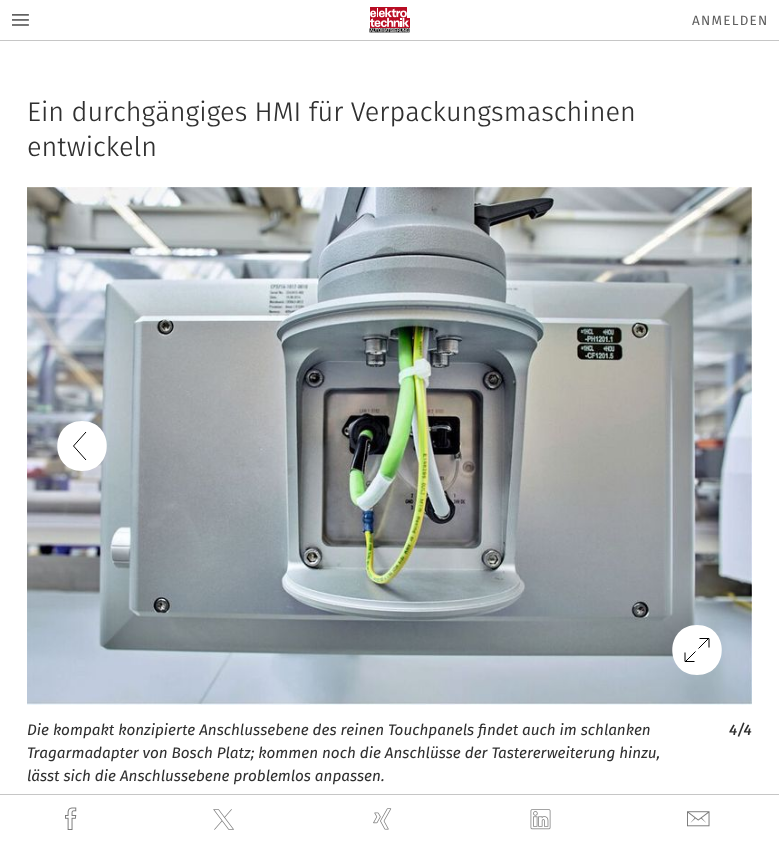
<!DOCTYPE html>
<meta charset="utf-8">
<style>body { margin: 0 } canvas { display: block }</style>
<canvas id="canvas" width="779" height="844"></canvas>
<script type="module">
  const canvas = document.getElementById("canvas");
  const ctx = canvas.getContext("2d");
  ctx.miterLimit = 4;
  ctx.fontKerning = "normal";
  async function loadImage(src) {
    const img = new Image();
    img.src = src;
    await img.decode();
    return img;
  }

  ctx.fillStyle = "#ffffff";
  ctx.fillRect(0, 0, 779, 844);
  ctx.fillStyle = "#c6c6c6";
  ctx.fillRect(0, 40, 779, 1);
  ctx.drawImage(await loadImage("img1.png"), 12, 14, 17, 12);
  ctx.drawImage(await loadImage("img2.png"), 369, 7, 41, 26);
  ctx.letterSpacing = "1.25px";
  ctx.font = "13.5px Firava";
  ctx.fillStyle = "#5e5e5e";
  ctx.fillText("ANMELDEN", 692, 25);
  ctx.letterSpacing = "0px";
  ctx.font = "300 27px Firava";
  ctx.fillStyle = "#303030";
  ctx.fillText("Ein durchgängiges HMI für Verpackungsmaschinen", 27, 121);
  ctx.fillText("entwickeln", 27, 156);
  ctx.drawImage(await loadImage("img3.png"), 27, 187, 725, 518);
  ctx.fillStyle = "#ffffff";
  ctx.beginPath();
  ctx.moveTo(82, 471);
  ctx.bezierCurveTo(115, 471, 115, 421, 82, 421);
  ctx.bezierCurveTo(49, 421, 49, 471, 82, 471);
  ctx.fill();
  ctx.beginPath();
  ctx.moveTo(86, 432);
  ctx.lineTo(73.5, 446);
  ctx.lineTo(86, 460);
  ctx.strokeStyle = "#000000";
  ctx.stroke();
  ctx.beginPath();
  ctx.moveTo(697, 675);
  ctx.bezierCurveTo(730, 675, 730, 625, 697, 625);
  ctx.bezierCurveTo(664, 625, 664, 675, 697, 675);
  ctx.fill();
  ctx.beginPath();
  ctx.moveTo(709, 647.5);
  ctx.lineTo(709, 638.5);
  ctx.lineTo(699.5, 638.5);
  ctx.moveTo(685, 652.5);
  ctx.lineTo(685, 661.5);
  ctx.lineTo(694.5, 661.5);
  ctx.moveTo(708.5, 638.5);
  ctx.lineTo(698.5, 648.5);
  ctx.moveTo(695.5, 651.5);
  ctx.lineTo(685.5, 661.5);
  ctx.stroke();
  ctx.font = "italic 15.3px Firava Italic";
  ctx.fillStyle = "#303030";
  ctx.fillText("Die kompakt konzipierte Anschlussebene des reinen Touchpanels findet auch im schlanken", 27, 735);
  ctx.fillText("Tragarmadapter von Bosch Platz; kommen noch die Anschlüsse der Tastererweiterung hinzu,", 27, 758);
  ctx.fillText("lässt sich die Anschlussebene problemlos anpassen.", 27, 781);
  ctx.font = "italic 500 15.3px Firava Italic";
  ctx.fillText("4/4", 729, 735);
  ctx.fillStyle = "#c6c6c6";
  ctx.fillRect(0, 794, 779, 1);
  ctx.drawImage(await loadImage("img4.png"), 65, 807, 12, 23);
  ctx.drawImage(await loadImage("img5.png"), 213, 809, 21, 21);
  ctx.drawImage(await loadImage("img6.png"), 373, 808, 19, 22);
  ctx.drawImage(await loadImage("img7.png"), 530, 809, 21, 21);
  ctx.drawImage(await loadImage("img8.png"), 687, 811, 23, 16);
</script>
